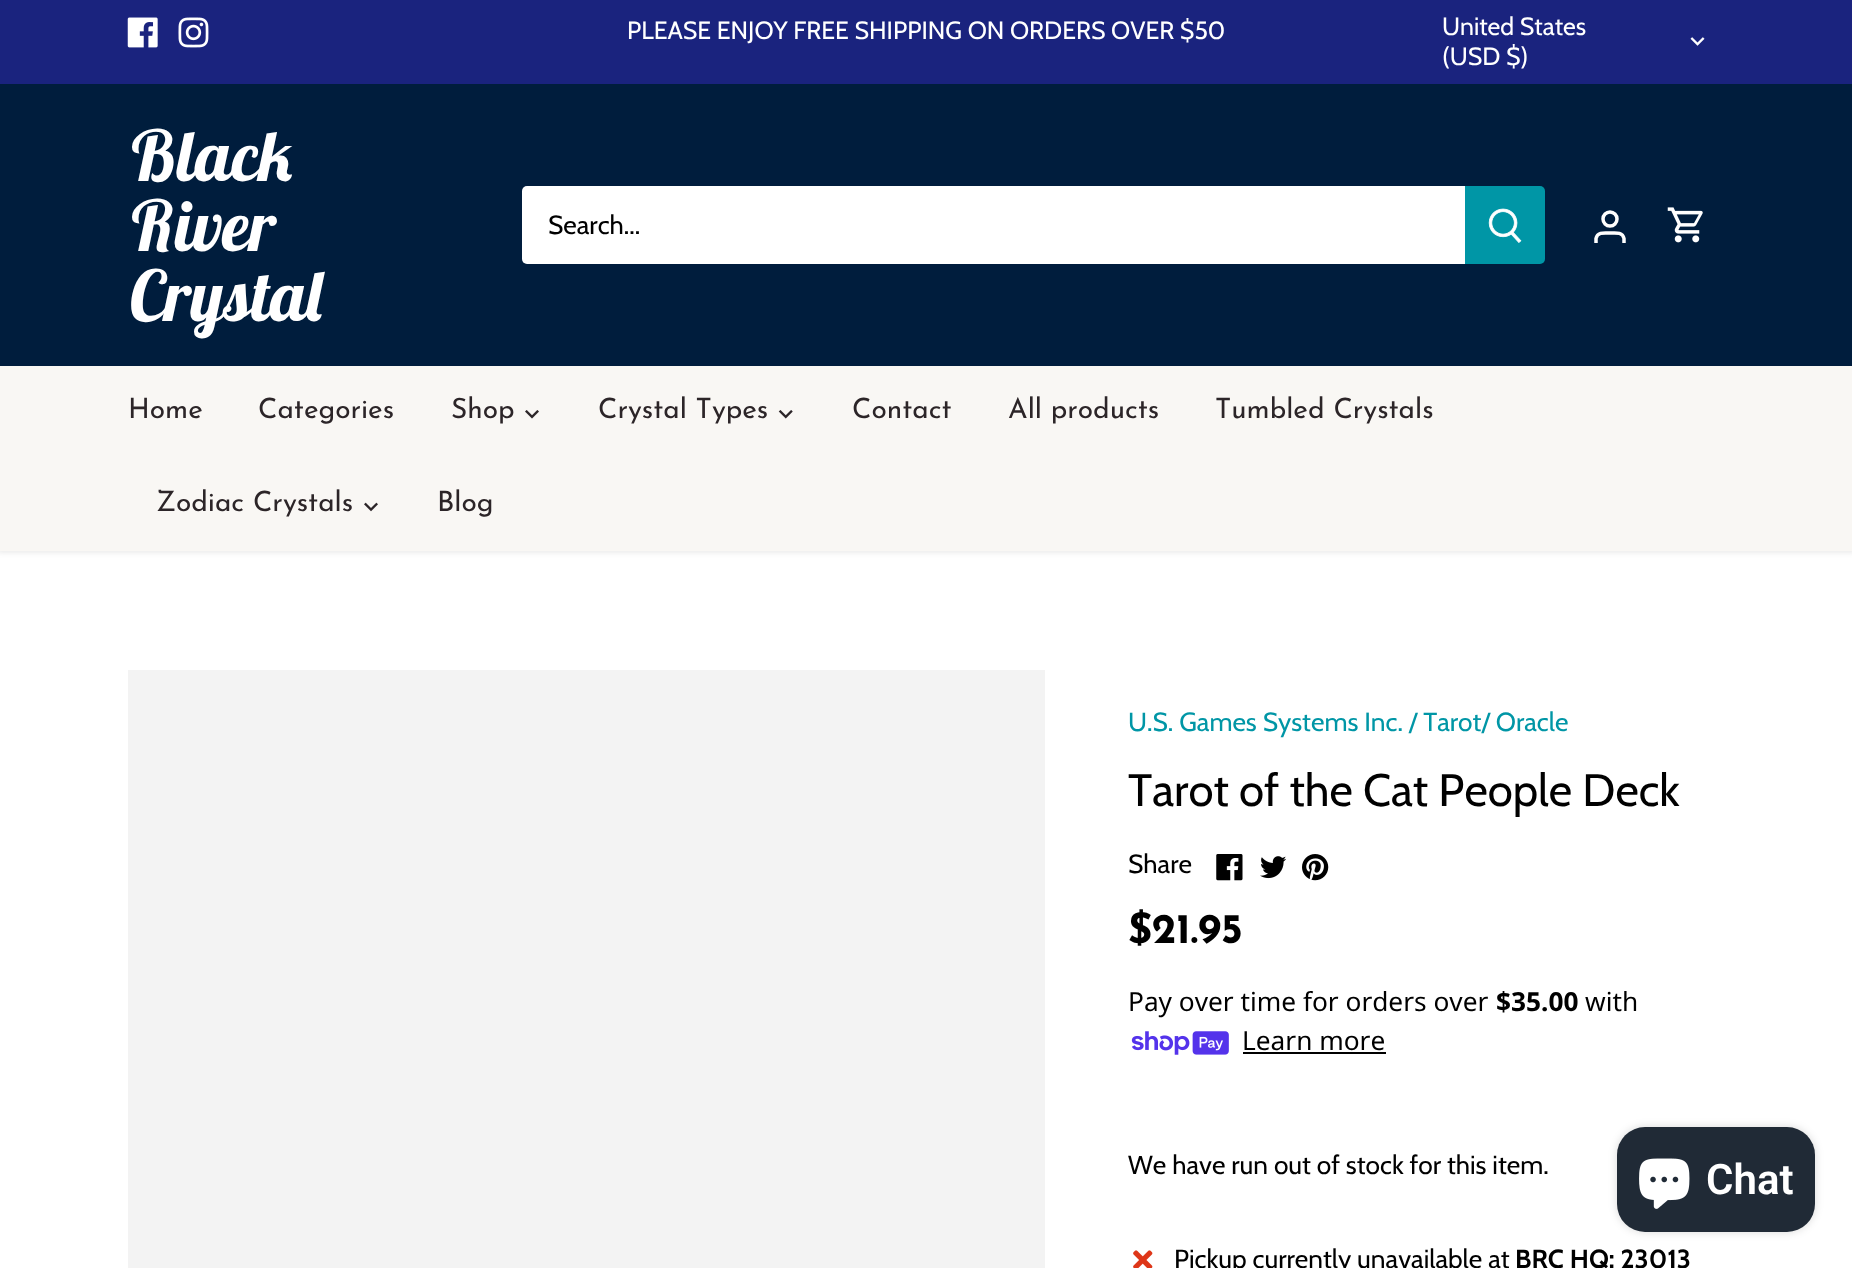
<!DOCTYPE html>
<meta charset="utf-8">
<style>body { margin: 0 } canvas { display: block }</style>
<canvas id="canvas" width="1852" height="1268"></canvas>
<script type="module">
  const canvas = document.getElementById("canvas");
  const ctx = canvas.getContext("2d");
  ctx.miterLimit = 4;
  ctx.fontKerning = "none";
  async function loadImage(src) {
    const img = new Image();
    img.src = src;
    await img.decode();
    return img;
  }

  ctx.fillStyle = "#ffffff";
  ctx.fillRect(0, 0, 1852, 1268);
  ctx.fillStyle = "rgba(0, 0, 0, 0.08)";
  ctx.filter = "blur(2.5px)";
  ctx.beginPath();
  ctx.rect(-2, 82, 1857, 471);
  ctx.fill();
  ctx.filter = "none";
  ctx.fillStyle = "#1a237e";
  ctx.fillRect(0, 0, 1852, 84);
  ctx.drawImage(await loadImage("img1.png"), 127, 17, 31, 31);
  ctx.drawImage(await loadImage("img2.png"), 178, 17, 31, 31);
  ctx.font = "24.9px Cabin";
  ctx.fillStyle = "#ffffff";
  ctx.fillText("PLEASE ENJOY FREE SHIPPING ON ORDERS OVER $50", 627, 39);
  ctx.fillText("United States", 1442, 35);
  ctx.drawImage(await loadImage("img3.png"), 1690, 37, 15, 9);
  ctx.fillText("(USD $)", 1442, 65);
  ctx.fillStyle = "#f9f7f4";
  ctx.fillRect(0, 366, 1852, 185);
  ctx.fillStyle = "#001d3d";
  ctx.fillRect(0, 84, 1852, 282);
  ctx.font = "italic bold 70px Lobster Two";
  ctx.fillStyle = "#ffffff";
  ctx.fillText("Black", 128, 181);
  ctx.fillText("River", 128, 251);
  ctx.fillText("Crystal", 128, 321);
  ctx.beginPath();
  ctx.roundRect(522, 186, 945, 78, [5, 0, 0, 5]);
  ctx.fill();
  ctx.font = "26.25px Cabin";
  ctx.fillStyle = "#000000";
  ctx.fillText("Search...", 548, 234);
  ctx.fillStyle = "#0096a6";
  ctx.beginPath();
  ctx.roundRect(1465, 186, 80, 78, [0, 5, 5, 0]);
  ctx.fill();
  ctx.drawImage(await loadImage("img4.png"), 1488, 208, 34, 35);
  ctx.beginPath();
  ctx.arc(1610, 219, 7, 0, Math.PI * 2);
  ctx.strokeStyle = "#ffffff";
  ctx.lineWidth = 3.5;
  ctx.stroke();
  ctx.beginPath();
  ctx.moveTo(1624, 243);
  ctx.lineTo(1624, 238.5);
  ctx.bezierCurveTo(1622.5, 231.5, 1615, 233, 1610, 233);
  ctx.bezierCurveTo(1605, 233, 1597.5, 231.5, 1596, 238.5);
  ctx.lineTo(1596, 243);
  ctx.stroke();
  ctx.drawImage(await loadImage("img5.png"), 1667, 207, 36, 36);
  ctx.font = "28px Josefin Sans";
  ctx.fillStyle = "#2c2528";
  ctx.fillText("Home", 128, 418);
  ctx.fillText("Categories", 258, 418);
  ctx.fillText("Shop", 451, 418);
  ctx.drawImage(await loadImage("img6.png"), 525, 410, 14, 9);
  ctx.fillText("Crystal Types", 598, 418);
  ctx.drawImage(await loadImage("img7.png"), 778, 410, 15, 9);
  ctx.fillText("Contact", 852, 418);
  ctx.fillText("All products", 1008, 418);
  ctx.fillText("Tumbled Crystals", 1215, 418);
  ctx.fillText("Zodiac Crystals", 156, 511);
  ctx.drawImage(await loadImage("img8.png"), 364, 502, 14, 10);
  ctx.fillText("Blog", 437, 511);
  ctx.fillStyle = "#f3f3f3";
  ctx.fillRect(128, 670, 917, 598);
  ctx.font = "26.25px Cabin";
  ctx.fillStyle = "#0096a6";
  ctx.fillText("U.S. Games Systems Inc. / Tarot/ Oracle", 1128, 731);
  ctx.font = "45.5px Cabin";
  ctx.fillStyle = "#000000";
  ctx.fillText("Tarot of the Cat People Deck", 1128, 806);
  ctx.font = "26.25px Cabin";
  ctx.fillText("Share", 1128, 873);
  ctx.drawImage(await loadImage("img9.png"), 1216, 854, 27, 27);
  ctx.drawImage(await loadImage("img10.png"), 1260, 856, 27, 23);
  ctx.drawImage(await loadImage("img11.png"), 1302, 854, 27, 27);
  ctx.font = "bold 42px Josefin Sans";
  ctx.fillText("$21.95", 1128, 943);
  ctx.font = "26.25px Noto Sans";
  ctx.fillText("Pay over time for orders over", 1128, 1011);
  ctx.font = "bold 26.25px Noto Sans";
  ctx.fillText("$35.00", 1496, 1011);
  ctx.font = "26.25px Noto Sans";
  ctx.fillText("with", 1585, 1011);
  ctx.drawImage(await loadImage("img12.png"), 1131, 1031, 98, 24);
  ctx.fillText("Learn more", 1242, 1050);
  ctx.fillRect(1243, 1052, 143, 2);
  ctx.font = "26.25px Cabin";
  ctx.fillText("We have run out of stock for this item.", 1128, 1174);
  ctx.drawImage(await loadImage("img13.png"), 1133, 1250, 20, 18);
  ctx.fillText("Pickup currently unavailable at", 1174, 1268);
  ctx.font = "bold 26.25px Cabin";
  ctx.fillText("BRC HQ: 23013", 1515, 1268);
  ctx.fillStyle = "rgba(0, 0, 0, 0.15)";
  ctx.filter = "blur(4.5px)";
  ctx.beginPath();
  ctx.roundRect(1617, 1127, 198, 105, 28);
  ctx.fill();
  ctx.filter = "none";
  ctx.fillStyle = "#202a36";
  ctx.beginPath();
  ctx.roundRect(1617, 1127, 198, 105, 28);
  ctx.fill();
  ctx.drawImage(await loadImage("img14.png"), 1639, 1158, 51, 51);
  ctx.font = "600 42px Roboto";
  ctx.fillStyle = "#ffffff";
  ctx.fillText("Chat", 1706, 1194);
</script>
